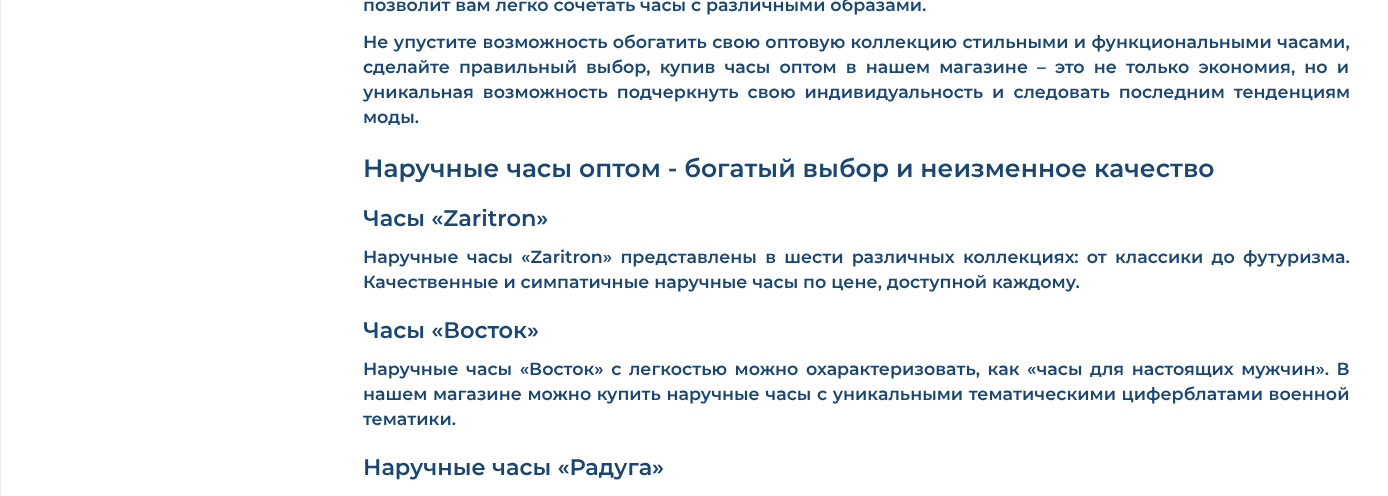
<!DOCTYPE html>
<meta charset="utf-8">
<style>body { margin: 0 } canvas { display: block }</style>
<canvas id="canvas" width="1388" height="496"></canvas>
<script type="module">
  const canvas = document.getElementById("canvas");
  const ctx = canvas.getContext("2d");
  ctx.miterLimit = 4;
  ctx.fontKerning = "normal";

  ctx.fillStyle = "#ffffff";
  ctx.fillRect(0, 0, 1388, 496);
  ctx.fillStyle = "#eaebec";
  ctx.fillRect(0, 0, 1, 496);
  ctx.font = "600 17.5px Montserrat";
  ctx.fillStyle = "#194674";
  ctx.fillText("позволит вам легко сочетать часы с различными образами.", 363, 11);
  ctx.wordSpacing = "0.5px";
  ctx.fillText("Не упустите возможность обогатить свою оптовую коллекцию стильными и функциональными часами,", 363, 48);
  ctx.wordSpacing = "4.25px";
  ctx.fillText("сделайте правильный выбор, купив часы оптом в нашем магазине – это не только экономия, но и", 363, 73);
  ctx.fillText("уникальная возможность подчеркнуть свою индивидуальность и следовать последним тенденциям", 363, 98);
  ctx.wordSpacing = "0px";
  ctx.fillText("моды.", 363, 123);
  ctx.font = "600 25px Montserrat";
  ctx.fillText("Наручные часы оптом - богатый выбор и неизменное качество", 363, 177);
  ctx.font = "600 22.5px Montserrat";
  ctx.fillText("Часы «Zaritron»", 363, 226);
  ctx.wordSpacing = "3.4px";
  ctx.font = "600 17.5px Montserrat";
  ctx.fillText("Наручные часы «Zaritron» представлены в шести различных коллекциях: от классики до футуризма.", 363, 263);
  ctx.wordSpacing = "0px";
  ctx.fillText("Качественные и симпатичные наручные часы по цене, доступной каждому.", 363, 288);
  ctx.font = "600 22.5px Montserrat";
  ctx.fillText("Часы «Восток»", 363, 338);
  ctx.wordSpacing = "2.75px";
  ctx.font = "600 17.5px Montserrat";
  ctx.fillText("Наручные часы «Восток» с легкостью можно охарактеризовать, как «часы для настоящих мужчин». В", 363, 375);
  ctx.wordSpacing = "0.75px";
  ctx.fillText("нашем магазине можно купить наручные часы с уникальными тематическими циферблатами военной", 363, 400);
  ctx.wordSpacing = "0px";
  ctx.fillText("тематики.", 363, 425);
  ctx.font = "600 22.5px Montserrat";
  ctx.fillText("Наручные часы «Радуга»", 363, 475);
</script>
